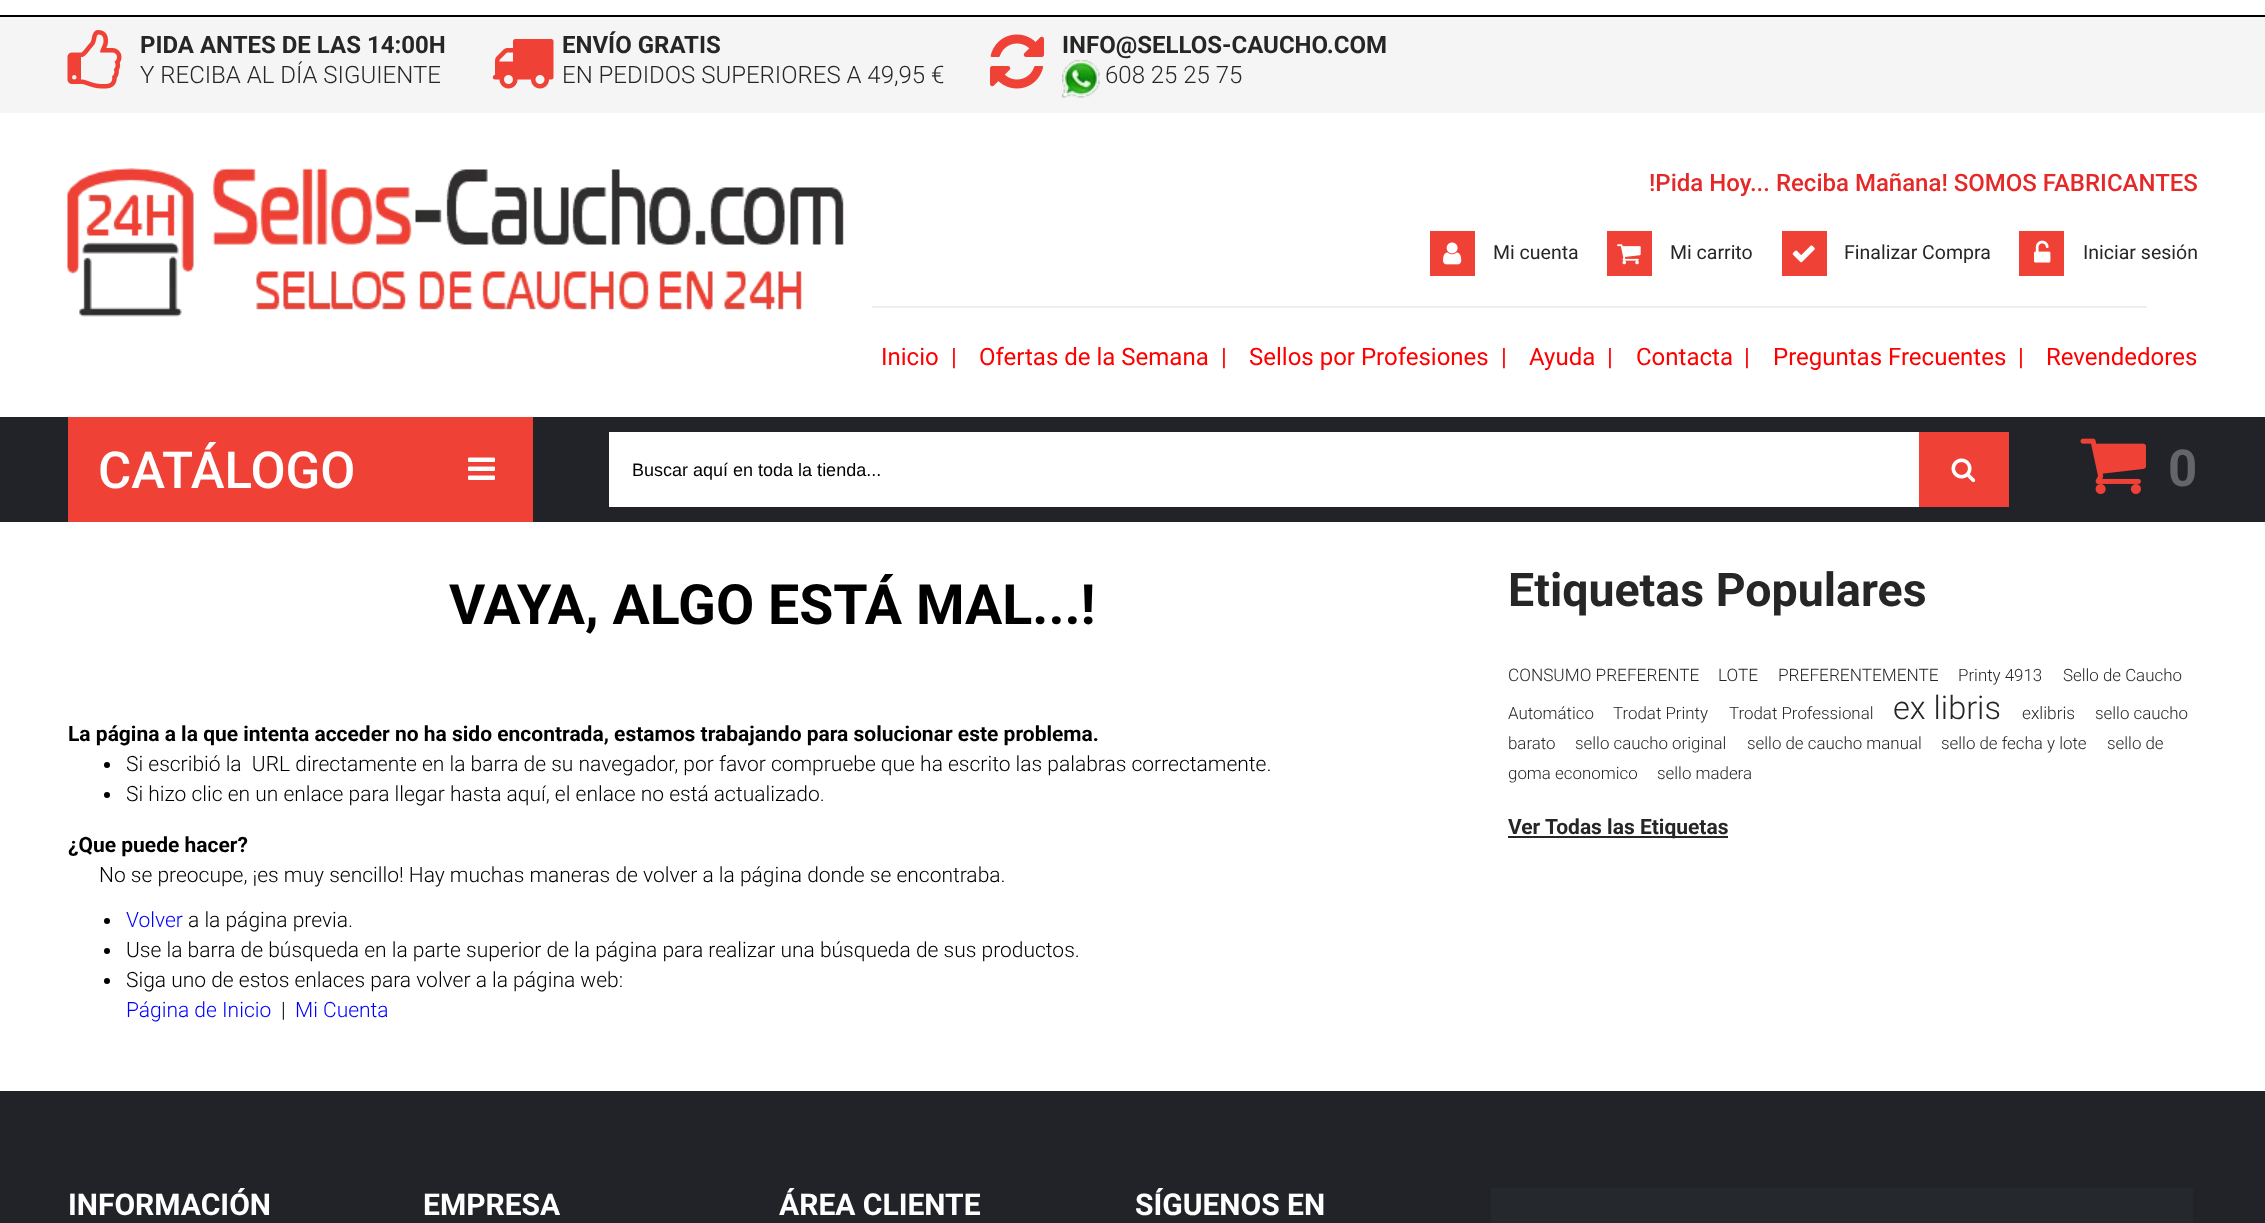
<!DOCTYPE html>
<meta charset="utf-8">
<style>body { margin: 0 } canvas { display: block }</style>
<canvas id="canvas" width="2265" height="1223"></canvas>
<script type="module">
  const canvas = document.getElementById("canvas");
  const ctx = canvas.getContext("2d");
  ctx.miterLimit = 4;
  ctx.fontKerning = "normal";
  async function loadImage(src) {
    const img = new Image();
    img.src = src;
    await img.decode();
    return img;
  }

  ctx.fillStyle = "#ffffff";
  ctx.fillRect(0, 0, 2265, 1223);
  ctx.fillStyle = "#000000";
  ctx.fillRect(0, 15, 2265, 2);
  ctx.fillStyle = "#f5f5f5";
  ctx.fillRect(0, 17, 2265, 96);
  ctx.drawImage(await loadImage("img1.png"), 67, 30, 55, 59);
  ctx.font = "bold 24px Roboto";
  ctx.fillStyle = "#262626";
  ctx.fillText("PIDA ANTES DE LAS 14:00H", 140, 53);
  ctx.font = "300 24px Roboto";
  ctx.fillText("Y RECIBA AL DÍA SIGUIENTE", 140, 83);
  ctx.drawImage(await loadImage("img2.png"), 492, 39, 62, 50);
  ctx.font = "bold 24px Roboto";
  ctx.fillText("ENVÍO GRATIS", 562, 53);
  ctx.font = "300 24px Roboto";
  ctx.fillText("EN PEDIDOS SUPERIORES A 49,95 €", 562, 83);
  ctx.drawImage(await loadImage("img3.png"), 990, 34, 54, 55);
  ctx.font = "bold 24px Roboto";
  ctx.fillText("INFO@SELLOS-CAUCHO.COM", 1062, 53);
  ctx.drawImage(await loadImage("img4.png"), 1062, 60, 38, 38);
  ctx.font = "300 24px Roboto";
  ctx.fillText("608 25 25 75", 1105, 83);
  ctx.drawImage(await loadImage("img5.png"), 67, 168, 777, 149);
  ctx.font = "500 24px Roboto";
  ctx.fillStyle = "#e52828";
  ctx.fillText("!Pida Hoy... Reciba Mañana! SOMOS FABRICANTES", 1649, 191);
  ctx.fillStyle = "#ef4135";
  ctx.fillRect(1430, 231, 45, 45);
  ctx.drawImage(await loadImage("img6.png"), 1443, 242, 19, 23);
  ctx.font = "19.5px Roboto";
  ctx.fillStyle = "#262626";
  ctx.fillText("Mi cuenta", 1493, 259);
  ctx.fillStyle = "#ef4135";
  ctx.fillRect(1607, 231, 45, 45);
  ctx.drawImage(await loadImage("img7.png"), 1617, 244, 24, 21);
  ctx.fillStyle = "#262626";
  ctx.fillText("Mi carrito", 1670, 259);
  ctx.fillStyle = "#ef4135";
  ctx.fillRect(1782, 231, 45, 45);
  ctx.drawImage(await loadImage("img8.png"), 1792, 245, 23, 18);
  ctx.fillStyle = "#262626";
  ctx.fillText("Finalizar Compra", 1844, 259);
  ctx.fillStyle = "#ef4135";
  ctx.fillRect(2019, 231, 45, 45);
  ctx.drawImage(await loadImage("img9.png"), 2034, 240, 17, 23);
  ctx.fillStyle = "#262626";
  ctx.fillText("Iniciar sesión", 2083, 259);
  ctx.fillStyle = "#eeeeee";
  ctx.fillRect(872, 306, 1275, 2);
  ctx.font = "24px Roboto";
  ctx.fillStyle = "#ff0000";
  ctx.fillText("Inicio", 881, 365);
  ctx.fillText("|", 951, 365);
  ctx.fillText("Ofertas de la Semana", 979, 365);
  ctx.fillText("|", 1221, 365);
  ctx.fillText("Sellos por Profesiones", 1249, 365);
  ctx.fillText("|", 1501, 365);
  ctx.fillText("Ayuda", 1529, 365);
  ctx.fillText("|", 1607, 365);
  ctx.fillText("Contacta", 1636, 365);
  ctx.fillText("|", 1744, 365);
  ctx.fillText("Preguntas Frecuentes", 1773, 365);
  ctx.fillText("|", 2018, 365);
  ctx.fillText("Revendedores", 2046, 365);
  ctx.fillStyle = "#212328";
  ctx.fillRect(0, 417, 2265, 105);
  ctx.fillStyle = "#ef4135";
  ctx.fillRect(68, 417, 465, 105);
  ctx.font = "500 51px Roboto";
  ctx.fillStyle = "#ffffff";
  ctx.fillText("CATÁLOGO", 98, 488);
  ctx.drawImage(await loadImage("img10.png"), 468, 457, 27, 23);
  ctx.fillRect(609, 432, 1310, 75);
  ctx.font = "18px Liberation Sans";
  ctx.fillStyle = "#000000";
  ctx.fillText("Buscar aquí en toda la tienda...", 632, 476);
  ctx.fillStyle = "#ef4135";
  ctx.fillRect(1919, 432, 90, 75);
  ctx.drawImage(await loadImage("img11.png"), 1951, 458, 25, 25);
  ctx.drawImage(await loadImage("img12.png"), 2080, 438, 66, 56);
  ctx.font = "bold 51px Roboto";
  ctx.fillStyle = "#646569";
  ctx.fillText("0", 2168, 486);
  ctx.font = "bold 55.5px Roboto";
  ctx.fillStyle = "#000000";
  ctx.fillText("VAYA, ALGO ESTÁ MAL...!", 449, 624);
  ctx.font = "bold 21px Roboto";
  ctx.fillText("La página a la que intenta acceder no ha sido encontrada, estamos trabajando para solucionar este problema.", 68, 741);
  ctx.beginPath();
  ctx.arc(107, 765, 3, 0, Math.PI * 2);
  ctx.fill();
  ctx.font = "300 21px Roboto";
  ctx.fillText("Si escribió la  URL directamente en la barra de su navegador, por favor compruebe que ha escrito las palabras correctamente.", 126, 771);
  ctx.beginPath();
  ctx.arc(107, 795, 3, 0, Math.PI * 2);
  ctx.fill();
  ctx.fillText("Si hizo clic en un enlace para llegar hasta aquí, el enlace no está actualizado.", 126, 801);
  ctx.font = "bold 21px Roboto";
  ctx.fillText("¿Que puede hacer?", 68, 852);
  ctx.font = "300 21px Roboto";
  ctx.fillText("No se preocupe, ¡es muy sencillo! Hay muchas maneras de volver a la página donde se encontraba.", 99, 882);
  ctx.beginPath();
  ctx.arc(107, 921, 3, 0, Math.PI * 2);
  ctx.fill();
  ctx.fillStyle = "#0000ff";
  ctx.fillText("Volver", 126, 927);
  ctx.fillStyle = "#000000";
  ctx.fillText("a la página previa.", 188, 927);
  ctx.beginPath();
  ctx.arc(107, 951, 3, 0, Math.PI * 2);
  ctx.fill();
  ctx.fillText("Use la barra de búsqueda en la parte superior de la página para realizar una búsqueda de sus productos.", 126, 957);
  ctx.beginPath();
  ctx.arc(107, 981, 3, 0, Math.PI * 2);
  ctx.fill();
  ctx.fillText("Siga uno de estos enlaces para volver a la página web:", 126, 987);
  ctx.fillStyle = "#0000ff";
  ctx.fillText("Página de Inicio", 126, 1017);
  ctx.fillStyle = "#000000";
  ctx.fillText("|", 281, 1017);
  ctx.fillStyle = "#0000ff";
  ctx.fillText("Mi Cuenta", 295, 1017);
  ctx.font = "bold 46.5px Roboto";
  ctx.fillStyle = "#262626";
  ctx.fillText("Etiquetas Populares", 1508, 606);
  ctx.font = "300 17.25px Roboto";
  ctx.fillText("CONSUMO PREFERENTE", 1508, 681);
  ctx.fillText("LOTE", 1718, 681);
  ctx.fillText("PREFERENTEMENTE", 1778, 681);
  ctx.font = "300 16.9px Roboto";
  ctx.fillText("Printy 4913", 1958, 681);
  ctx.fillText("Sello de Caucho", 2063, 681);
  ctx.fillText("Automático", 1508, 719);
  ctx.fillText("Trodat Printy", 1613, 719);
  ctx.fillText("Trodat Professional", 1729, 719);
  ctx.font = "300 32.5px Roboto";
  ctx.fillText("ex libris", 1893, 719);
  ctx.font = "300 17.25px Roboto";
  ctx.fillText("exlibris", 2022, 719);
  ctx.font = "300 16.9px Roboto";
  ctx.fillText("sello caucho", 2095, 719);
  ctx.fillText("barato", 1508, 749);
  ctx.fillText("sello caucho original", 1575, 749);
  ctx.fillText("sello de caucho manual", 1747, 749);
  ctx.fillText("sello de fecha y lote", 1941, 749);
  ctx.fillText("sello de", 2107, 749);
  ctx.fillText("goma economico", 1508, 779);
  ctx.fillText("sello madera", 1657, 779);
  ctx.fillRect(1508, 836, 220, 2);
  ctx.font = "bold 21px Roboto";
  ctx.fillText("Ver Todas las Etiquetas", 1508, 834);
  ctx.fillStyle = "#212328";
  ctx.fillRect(0, 1091, 2265, 132);
  ctx.save();
  ctx.beginPath();
  ctx.rect(68, 1188, 2130, 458);
  ctx.clip();
  ctx.font = "bold 30px Roboto";
  ctx.fillStyle = "#ffffff";
  ctx.fillText("INFORMACIÓN", 68, 1215);
  ctx.restore();
  ctx.font = "bold 30px Roboto";
  ctx.fillStyle = "#ffffff";
  ctx.fillText("EMPRESA", 423, 1215);
  ctx.save();
  ctx.beginPath();
  ctx.rect(68, 1188, 2130, 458);
  ctx.clip();
  ctx.fillText("ÁREA CLIENTE", 779, 1215);
  ctx.fillText("SÍGUENOS EN", 1135, 1215);
  ctx.restore();
  ctx.fillStyle = "#25282d";
  ctx.fillRect(1491, 1188, 702, 35);
</script>
